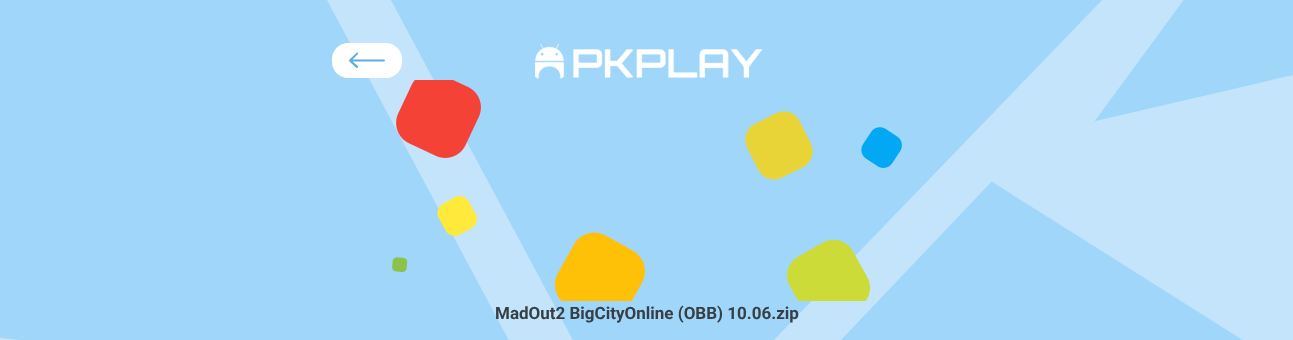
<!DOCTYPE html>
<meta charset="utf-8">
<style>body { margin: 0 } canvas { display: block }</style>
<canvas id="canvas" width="1293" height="340"></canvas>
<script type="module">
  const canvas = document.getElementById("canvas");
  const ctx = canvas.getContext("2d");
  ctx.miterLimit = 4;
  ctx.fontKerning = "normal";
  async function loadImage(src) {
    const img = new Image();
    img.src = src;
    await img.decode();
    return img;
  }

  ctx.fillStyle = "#c3e4fa";
  ctx.fillRect(0, 0, 1293, 340);
  ctx.drawImage(await loadImage("img1.png"), 0, 0, 1293, 340);
  ctx.fillStyle = "#ffffff";
  ctx.beginPath();
  ctx.roundRect(332, 43, 70, 35, 16);
  ctx.fill();
  ctx.fillStyle = "#5dade2";
  ctx.beginPath();
  ctx.moveTo(356.5, 53);
  ctx.lineTo(350.5, 58.5);
  ctx.bezierCurveTo(348.5, 60.5, 348.5, 60.5, 350.5, 62.5);
  ctx.lineTo(356.5, 68);
  ctx.bezierCurveTo(357.5, 68.5, 358.5, 67, 358, 66);
  ctx.lineTo(352.5, 61.5);
  ctx.lineTo(384, 61.5);
  ctx.bezierCurveTo(384.5, 61.5, 385, 60.5, 385, 60);
  ctx.lineTo(384, 59.5);
  ctx.lineTo(352.5, 59.5);
  ctx.lineTo(358, 54);
  ctx.bezierCurveTo(358.5, 53, 357, 52, 356.5, 53);
  ctx.closePath();
  ctx.fill("evenodd");
  ctx.drawImage(await loadImage("img2.png"), 535, 43, 228, 36);
  ctx.drawImage(await loadImage("img3.png"), 392, 80, 510, 221);
  ctx.font = "bold 17px Roboto";
  ctx.fillStyle = "#363f46";
  ctx.fillText("MadOut2 BigCityOnline (OBB) 10.06.zip", 495, 319);
</script>
